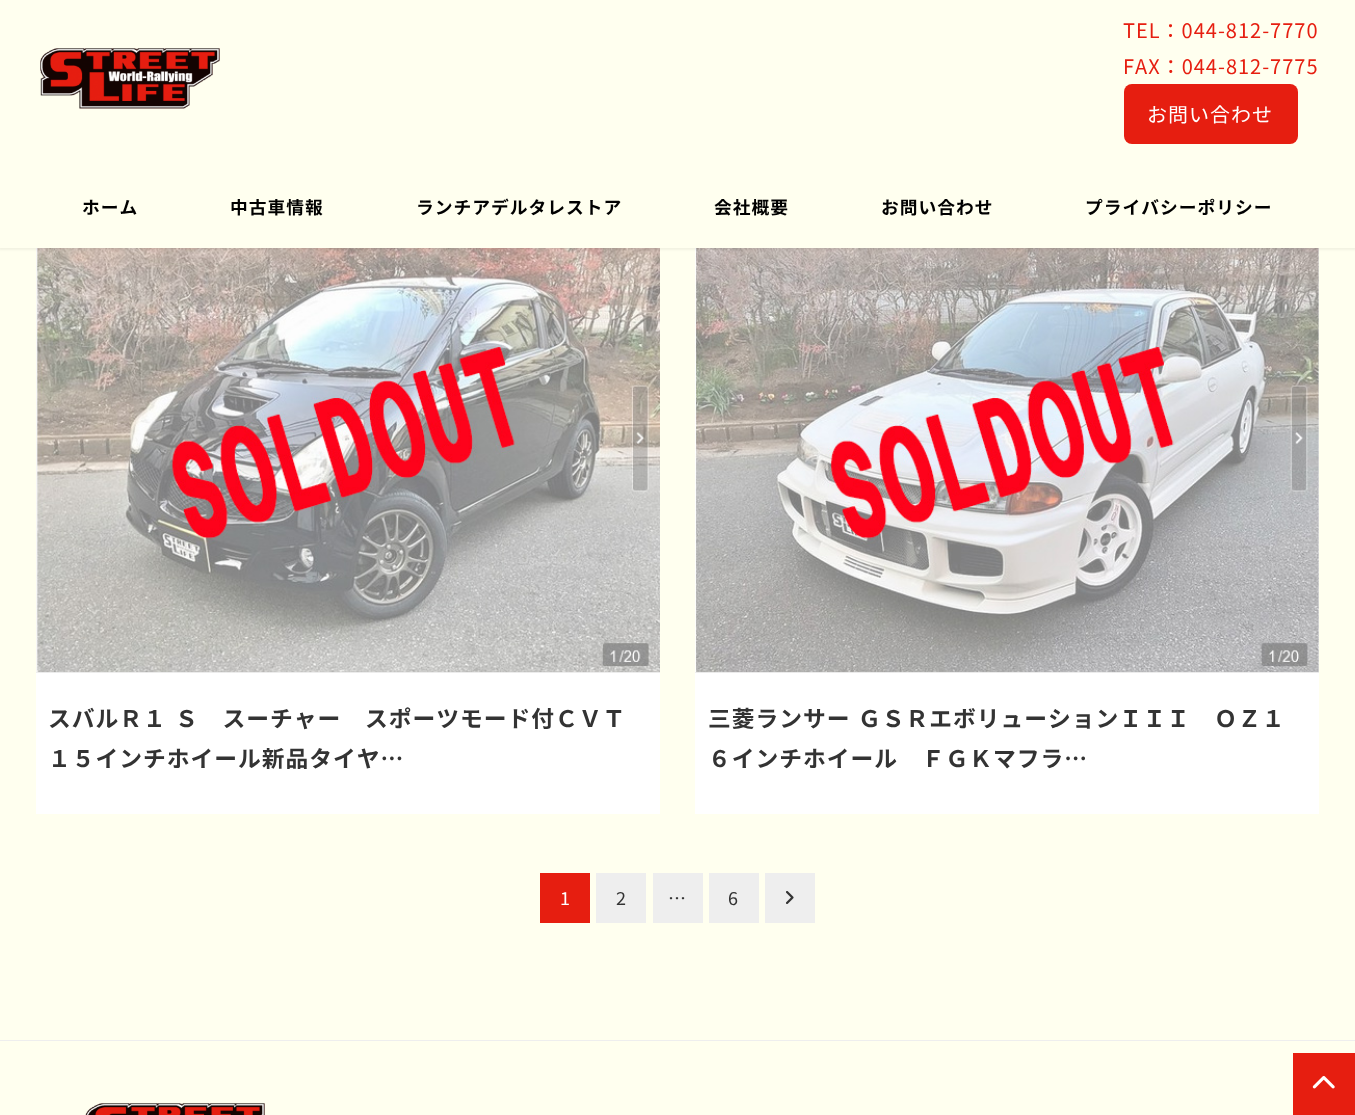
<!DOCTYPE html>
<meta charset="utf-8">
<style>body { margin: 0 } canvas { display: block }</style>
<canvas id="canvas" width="1355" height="1115"></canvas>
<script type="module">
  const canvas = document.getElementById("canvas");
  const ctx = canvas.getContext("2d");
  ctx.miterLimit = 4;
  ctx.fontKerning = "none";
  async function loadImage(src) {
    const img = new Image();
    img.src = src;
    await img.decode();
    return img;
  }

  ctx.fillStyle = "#ffffef";
  ctx.fillRect(0, 0, 1355, 1115);
  ctx.fillStyle = "#eeeeee";
  ctx.fillRect(36, 248, 624, 425);
  ctx.drawImage(await loadImage("img2.png"), 36, 248, 624, 425);
  ctx.fillRect(695, 248, 624, 425);
  ctx.drawImage(await loadImage("img3.png"), 695, 248, 624, 425);
  ctx.fillStyle = "rgba(0, 0, 0, 0.05)";
  ctx.filter = "blur(1px)";
  ctx.beginPath();
  ctx.rect(-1, 0, 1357, 250);
  ctx.fill();
  ctx.filter = "none";
  ctx.fillStyle = "#ffffef";
  ctx.fillRect(0, 0, 1355, 248);
  ctx.drawImage(await loadImage("img1.png"), 40, 48, 180, 61);
  ctx.letterSpacing = "1px";
  ctx.font = "20px Noto Sans JP";
  ctx.fillStyle = "#e61e10";
  ctx.fillText("TEL：044-812-7770", 1123, 38);
  ctx.fillText("FAX：044-812-7775", 1123, 74);
  ctx.beginPath();
  ctx.roundRect(1124, 84, 174, 60, 8);
  ctx.fill();
  ctx.fillStyle = "#ffffff";
  ctx.fillText("お問い合わせ", 1147, 122);
  ctx.font = "bold 17.75px Noto Sans JP";
  ctx.fillStyle = "#000000";
  ctx.fillText("ホーム", 82, 214);
  ctx.fillText("中古車情報", 230, 214);
  ctx.fillText("ランチアデルタレストア", 416, 214);
  ctx.fillText("会社概要", 714, 214);
  ctx.fillText("お問い合わせ", 881, 214);
  ctx.fillText("プライバシーポリシー", 1085, 214);
  ctx.fillStyle = "#ffffff";
  ctx.fillRect(36, 673, 624, 141);
  ctx.font = "bold 22.75px Noto Sans JP";
  ctx.fillStyle = "#333333";
  ctx.fillText("スバルＲ１", 48, 727);
  ctx.fillText("Ｓ　スーチャー　スポーツモード付ＣＶＴ", 175, 727);
  ctx.fillText("１５インチホイール新品タイヤ…", 48, 767);
  ctx.fillStyle = "#ffffff";
  ctx.fillRect(695, 673, 624, 141);
  ctx.fillStyle = "#333333";
  ctx.fillText("三菱ランサー", 708, 727);
  ctx.fillText("ＧＳＲエボリューションＩＩＩ　ＯＺ１", 858, 727);
  ctx.fillText("６インチホイール　ＦＧＫマフラ…", 708, 767);
  ctx.fillStyle = "#e61e10";
  ctx.fillRect(540, 873, 50, 50);
  ctx.font = "18px Noto Sans JP";
  ctx.fillStyle = "#ffffff";
  ctx.fillText("1", 560, 905);
  ctx.fillStyle = "#eeeeee";
  ctx.fillRect(596, 873, 50, 50);
  ctx.fillStyle = "#333333";
  ctx.fillText("2", 616, 905);
  ctx.fillStyle = "#eeeeee";
  ctx.fillRect(653, 873, 50, 50);
  ctx.fillStyle = "#333333";
  ctx.fillText("…", 668, 905);
  ctx.fillStyle = "#eeeeee";
  ctx.fillRect(709, 873, 50, 50);
  ctx.fillStyle = "#333333";
  ctx.fillText("6", 728, 905);
  ctx.fillStyle = "#eeeeee";
  ctx.fillRect(765, 873, 50, 50);
  ctx.drawImage(await loadImage("img4.png"), 786, 891, 8, 13);
  ctx.fillRect(0, 1040, 1355, 1);
  ctx.drawImage(await loadImage("img5.png"), 85, 1103, 180, 12);
  ctx.fillStyle = "#e61e10";
  ctx.fillRect(1293, 1053, 62, 62);
  ctx.drawImage(await loadImage("img6.png"), 1312, 1076, 23, 13);
</script>
